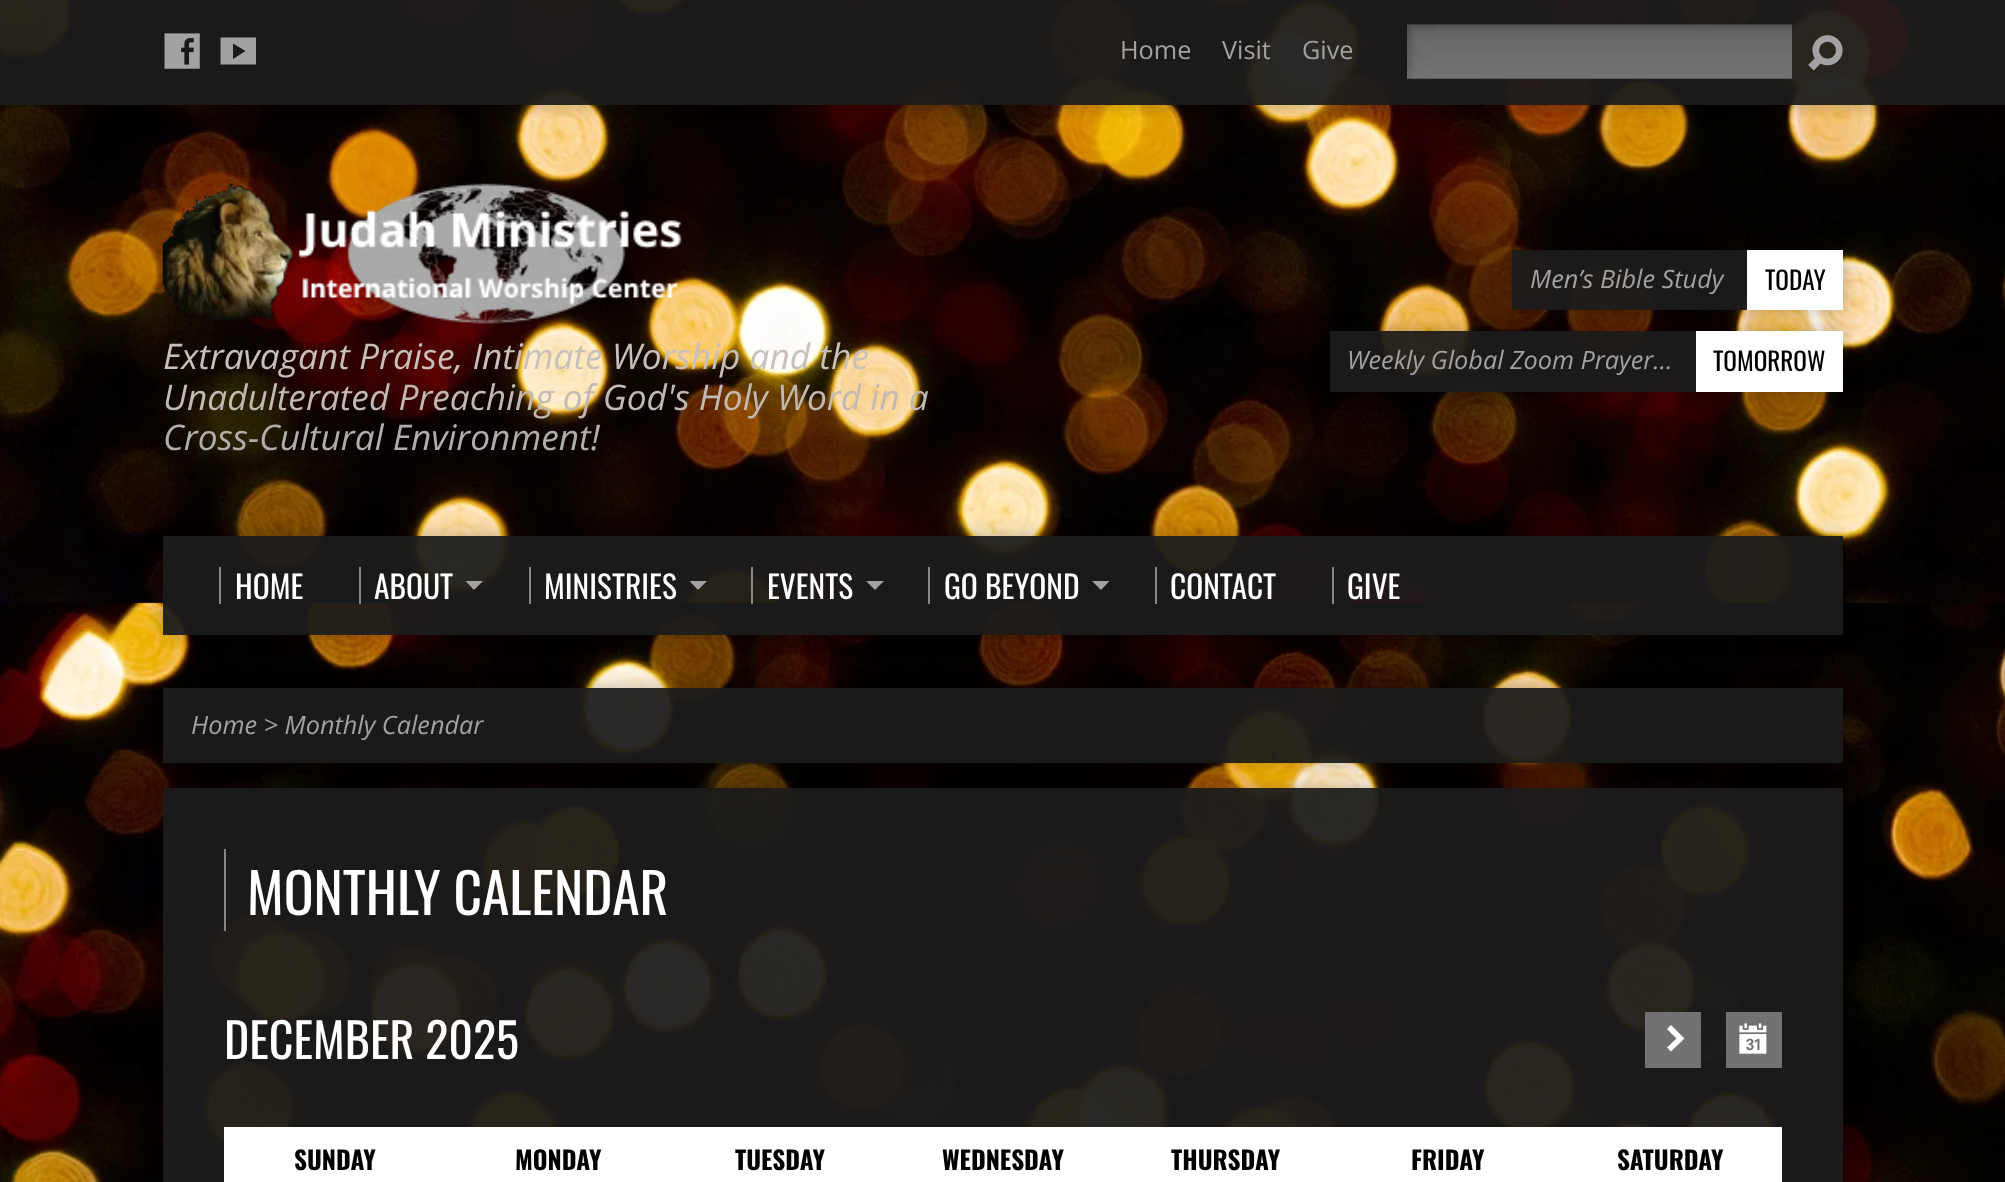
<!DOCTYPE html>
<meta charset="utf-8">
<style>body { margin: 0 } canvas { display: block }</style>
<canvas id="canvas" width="2005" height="1182"></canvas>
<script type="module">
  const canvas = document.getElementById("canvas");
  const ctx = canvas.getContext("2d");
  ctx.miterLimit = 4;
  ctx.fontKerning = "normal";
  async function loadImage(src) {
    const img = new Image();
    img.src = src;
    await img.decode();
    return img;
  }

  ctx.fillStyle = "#ffffff";
  ctx.fillRect(0, 0, 2005, 1182);
  ctx.drawImage(await loadImage("img1.png"), 0, 0, 2005, 1182);
  ctx.save();
  ctx.beginPath();
  ctx.rect(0, 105, 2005, 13);
  ctx.clip();
  ctx.fillStyle = "rgba(0, 0, 0, 0.25)";
  ctx.filter = "blur(9px)";
  ctx.beginPath();
  ctx.rect(0, 0, 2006, 105);
  ctx.fill();
  ctx.filter = "none";
  ctx.restore();
  ctx.fillStyle = "rgba(28, 28, 28, 0.94)";
  ctx.fillRect(0, 0, 2005, 105);
  ctx.drawImage(await loadImage("img2.png"), 164, 33, 36, 36);
  ctx.fillStyle = "#a2a2a2";
  ctx.beginPath();
  ctx.moveTo(256, 64.5);
  ctx.lineTo(220.5, 64.5);
  ctx.lineTo(220.5, 37.5);
  ctx.lineTo(256, 37.5);
  ctx.closePath();
  ctx.moveTo(233, 59);
  ctx.lineTo(245.5, 51);
  ctx.lineTo(233, 43.5);
  ctx.closePath();
  ctx.fill();
  ctx.font = "25.25px Open Sans";
  ctx.fillText("Home", 1120, 59);
  ctx.fillText("Visit", 1222, 59);
  ctx.fillText("Give", 1302, 59);
  ctx.drawImage(await loadImage("img3.png"), 1407, 24, 385, 55);
  ctx.drawImage(await loadImage("img4.png"), 1808, 35, 35, 36);
  ctx.save();
  ctx.beginPath();
  ctx.moveTo(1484, 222);
  ctx.lineTo(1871, 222);
  ctx.lineTo(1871, 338);
  ctx.lineTo(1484, 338);
  ctx.closePath();
  ctx.moveTo(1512, 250);
  ctx.lineTo(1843, 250);
  ctx.lineTo(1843, 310);
  ctx.lineTo(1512, 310);
  ctx.closePath();
  ctx.clip("evenodd");
  ctx.fillStyle = "rgba(0, 0, 0, 0.25)";
  ctx.filter = "blur(9px)";
  ctx.beginPath();
  ctx.rect(1512, 250, 331, 60);
  ctx.fill();
  ctx.filter = "none";
  ctx.restore();
  ctx.fillStyle = "rgba(28, 28, 28, 0.94)";
  ctx.fillRect(1512, 250, 235, 60);
  ctx.font = "italic 25.25px Open Sans";
  ctx.fillStyle = "#a2a2a2";
  ctx.fillText("Men’s Bible Study", 1530, 288);
  ctx.fillStyle = "#ffffff";
  ctx.fillRect(1747, 250, 96, 60);
  ctx.font = "25.25px Oswald";
  ctx.fillStyle = "#000000";
  ctx.fillText("TODAY", 1765, 290);
  ctx.save();
  ctx.beginPath();
  ctx.moveTo(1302, 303);
  ctx.lineTo(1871, 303);
  ctx.lineTo(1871, 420);
  ctx.lineTo(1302, 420);
  ctx.closePath();
  ctx.moveTo(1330, 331);
  ctx.lineTo(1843, 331);
  ctx.lineTo(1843, 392);
  ctx.lineTo(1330, 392);
  ctx.closePath();
  ctx.clip("evenodd");
  ctx.fillStyle = "rgba(0, 0, 0, 0.25)";
  ctx.filter = "blur(9px)";
  ctx.beginPath();
  ctx.rect(1330, 331, 513, 61);
  ctx.fill();
  ctx.filter = "none";
  ctx.restore();
  ctx.fillStyle = "rgba(28, 28, 28, 0.94)";
  ctx.fillRect(1330, 331, 366, 61);
  ctx.font = "italic 25.25px Open Sans";
  ctx.fillStyle = "#a2a2a2";
  ctx.fillText("Weekly Global Zoom Prayer…", 1347, 369);
  ctx.fillStyle = "#ffffff";
  ctx.fillRect(1696, 331, 147, 61);
  ctx.font = "25.25px Oswald";
  ctx.fillStyle = "#000000";
  ctx.fillText("TOMORROW", 1713, 371);
  ctx.drawImage(await loadImage("img5.png"), 162, 183, 520, 141);
  ctx.font = "italic 35.25px Open Sans";
  ctx.fillStyle = "#c7c0ba";
  ctx.fillText("Extravagant Praise, Intimate Worship and the", 163, 369);
  ctx.fillStyle = "#c0bab3";
  ctx.fillText("Unadulterated Preaching of God's Holy Word in a", 163, 410);
  ctx.fillStyle = "#b0aead";
  ctx.fillText("Cross-Cultural Environment!", 163, 450);
  ctx.save();
  ctx.beginPath();
  ctx.moveTo(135, 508);
  ctx.lineTo(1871, 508);
  ctx.lineTo(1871, 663);
  ctx.lineTo(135, 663);
  ctx.closePath();
  ctx.moveTo(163, 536);
  ctx.lineTo(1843, 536);
  ctx.lineTo(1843, 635);
  ctx.lineTo(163, 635);
  ctx.closePath();
  ctx.clip("evenodd");
  ctx.fillStyle = "rgba(0, 0, 0, 0.25)";
  ctx.filter = "blur(9px)";
  ctx.beginPath();
  ctx.rect(163, 536, 1680, 99);
  ctx.fill();
  ctx.filter = "none";
  ctx.restore();
  ctx.fillStyle = "rgba(28, 28, 28, 0.94)";
  ctx.fillRect(163, 536, 1680, 99);
  ctx.fillStyle = "#868686";
  ctx.fillRect(219, 567, 2, 37);
  ctx.font = "31.5px Oswald";
  ctx.fillStyle = "#ffffff";
  ctx.fillText("HOME", 235, 599);
  ctx.fillStyle = "#868686";
  ctx.fillRect(359, 567, 2, 37);
  ctx.fillStyle = "#ffffff";
  ctx.fillText("ABOUT", 374, 599);
  ctx.fillStyle = "#a2a2a2";
  ctx.beginPath();
  ctx.moveTo(465.5, 581);
  ctx.lineTo(483, 581);
  ctx.lineTo(474, 590);
  ctx.closePath();
  ctx.fill();
  ctx.fillStyle = "#868686";
  ctx.fillRect(529, 567, 2, 37);
  ctx.fillStyle = "#ffffff";
  ctx.fillText("MINISTRIES", 544, 599);
  ctx.fillStyle = "#a2a2a2";
  ctx.beginPath();
  ctx.moveTo(689.5, 581);
  ctx.lineTo(707, 581);
  ctx.lineTo(698, 590);
  ctx.closePath();
  ctx.fill();
  ctx.fillStyle = "#868686";
  ctx.fillRect(751, 567, 2, 37);
  ctx.fillStyle = "#ffffff";
  ctx.fillText("EVENTS", 767, 599);
  ctx.fillStyle = "#a2a2a2";
  ctx.beginPath();
  ctx.moveTo(866, 581);
  ctx.lineTo(884, 581);
  ctx.lineTo(875, 590);
  ctx.closePath();
  ctx.fill();
  ctx.fillStyle = "#868686";
  ctx.fillRect(928, 567, 2, 37);
  ctx.fillStyle = "#ffffff";
  ctx.fillText("GO BEYOND", 944, 599);
  ctx.fillStyle = "#a2a2a2";
  ctx.beginPath();
  ctx.moveTo(1092, 581);
  ctx.lineTo(1109.5, 581);
  ctx.lineTo(1101, 590);
  ctx.closePath();
  ctx.fill();
  ctx.fillStyle = "#868686";
  ctx.fillRect(1155, 567, 2, 37);
  ctx.fillStyle = "#ffffff";
  ctx.fillText("CONTACT", 1170, 599);
  ctx.fillStyle = "#868686";
  ctx.fillRect(1332, 567, 2, 37);
  ctx.fillStyle = "#ffffff";
  ctx.fillText("GIVE", 1347, 599);
  ctx.save();
  ctx.beginPath();
  ctx.moveTo(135, 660);
  ctx.lineTo(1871, 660);
  ctx.lineTo(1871, 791);
  ctx.lineTo(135, 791);
  ctx.closePath();
  ctx.moveTo(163, 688);
  ctx.lineTo(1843, 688);
  ctx.lineTo(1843, 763);
  ctx.lineTo(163, 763);
  ctx.closePath();
  ctx.clip("evenodd");
  ctx.fillStyle = "rgba(0, 0, 0, 0.25)";
  ctx.filter = "blur(9px)";
  ctx.beginPath();
  ctx.rect(163, 688, 1680, 75);
  ctx.fill();
  ctx.filter = "none";
  ctx.restore();
  ctx.fillStyle = "rgba(28, 28, 28, 0.94)";
  ctx.fillRect(163, 688, 1680, 75);
  ctx.font = "italic 25.25px Open Sans";
  ctx.fillStyle = "#a2a2a2";
  ctx.fillText("Home > Monthly Calendar", 191, 734);
  ctx.save();
  ctx.beginPath();
  ctx.moveTo(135, 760);
  ctx.lineTo(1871, 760);
  ctx.lineTo(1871, 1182);
  ctx.lineTo(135, 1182);
  ctx.closePath();
  ctx.moveTo(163, 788);
  ctx.lineTo(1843, 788);
  ctx.lineTo(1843, 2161);
  ctx.lineTo(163, 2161);
  ctx.closePath();
  ctx.clip("evenodd");
  ctx.fillStyle = "rgba(0, 0, 0, 0.25)";
  ctx.filter = "blur(9px)";
  ctx.beginPath();
  ctx.rect(163, 788, 1680, 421);
  ctx.fill();
  ctx.filter = "none";
  ctx.restore();
  ctx.fillStyle = "rgba(28, 28, 28, 0.94)";
  ctx.fillRect(163, 788, 1680, 394);
  ctx.fillStyle = "#868686";
  ctx.fillRect(224, 849, 2, 82);
  ctx.font = "55.5px Oswald";
  ctx.fillStyle = "#ffffff";
  ctx.fillText("MONTHLY CALENDAR", 247, 915);
  ctx.font = "48px Oswald";
  ctx.fillText("DECEMBER 2025", 224, 1059);
  ctx.fillStyle = "#727272";
  ctx.fillRect(1645, 1012, 56, 56);
  ctx.fillStyle = "#ffffff";
  ctx.beginPath();
  ctx.moveTo(1684.5, 1038.5);
  ctx.lineTo(1671, 1025);
  ctx.lineTo(1667, 1029);
  ctx.lineTo(1676.5, 1038.5);
  ctx.lineTo(1667, 1047.5);
  ctx.lineTo(1671, 1051.5);
  ctx.closePath();
  ctx.fill();
  ctx.fillStyle = "#727272";
  ctx.fillRect(1726, 1012, 56, 56);
  ctx.drawImage(await loadImage("img6.png"), 1739, 1023, 28, 31);
  ctx.fillStyle = "#ffffff";
  ctx.fillRect(224, 1127, 1558, 55);
  ctx.font = "bold 25.25px Oswald";
  ctx.fillStyle = "#000000";
  ctx.fillText("SUNDAY", 294, 1170);
  ctx.fillText("MONDAY", 515, 1170);
  ctx.fillText("TUESDAY", 735, 1170);
  ctx.fillText("WEDNESDAY", 942, 1170);
  ctx.fillText("THURSDAY", 1171, 1170);
  ctx.fillText("FRIDAY", 1411, 1170);
  ctx.fillText("SATURDAY", 1617, 1170);
</script>
